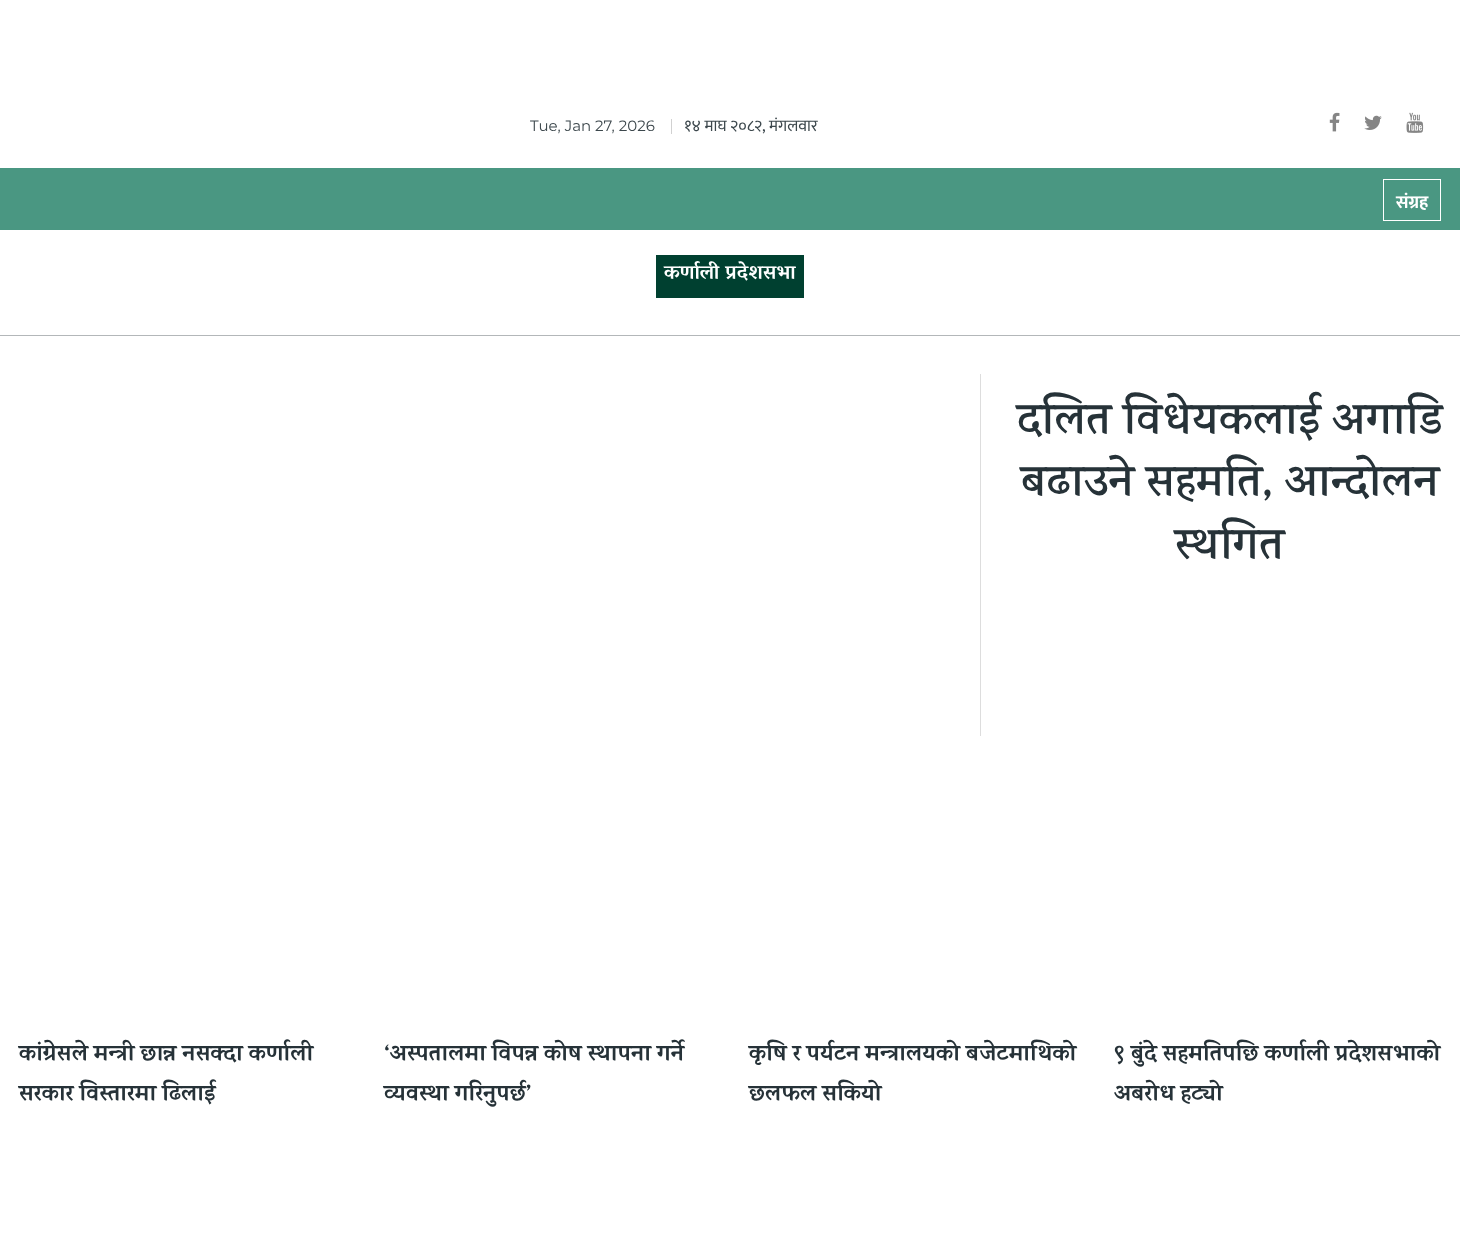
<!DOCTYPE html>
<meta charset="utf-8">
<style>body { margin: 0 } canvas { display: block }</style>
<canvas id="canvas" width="1460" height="1248"></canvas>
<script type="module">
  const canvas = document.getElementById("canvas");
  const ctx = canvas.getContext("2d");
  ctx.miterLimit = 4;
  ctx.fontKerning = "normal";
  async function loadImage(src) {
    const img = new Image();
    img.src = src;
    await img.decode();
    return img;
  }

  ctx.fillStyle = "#ffffff";
  ctx.fillRect(0, 0, 1460, 1248);
  ctx.font = "15px Montserrat";
  ctx.fillStyle = "#3c474c";
  ctx.fillText("Tue, Jan 27, 2026", 530, 131);
  ctx.fillStyle = "#d1d1d1";
  ctx.fillRect(671, 119, 1, 15);
  ctx.font = "16.25px Mukta";
  ctx.fillStyle = "#3c474c";
  ctx.fillText("१४ माघ २०८२, मंगलवार", 684, 131);
  ctx.drawImage(await loadImage("img1.png"), 1329, 112, 11, 20);
  ctx.drawImage(await loadImage("img2.png"), 1364, 115, 18, 15);
  ctx.drawImage(await loadImage("img3.png"), 1406, 112, 18, 21);
  ctx.fillStyle = "#4a9782";
  ctx.fillRect(0, 168, 1460, 62);
  ctx.strokeStyle = "#ffffff";
  ctx.strokeRect(1383.5, 179.5, 57, 41);
  ctx.font = "bold 18px Mukta";
  ctx.fillStyle = "#ffffff";
  ctx.fillText("संग्रह", 1396, 208);
  ctx.fillStyle = "#004030";
  ctx.fillRect(656, 255, 148, 43);
  ctx.font = "bold 20px Vesper Libre";
  ctx.fillStyle = "#ffffff";
  ctx.fillText("कर्णाली प्रदेशसभा", 664, 278);
  ctx.fillStyle = "#b3b7b9";
  ctx.fillRect(0, 335, 1460, 1);
  ctx.fillStyle = "#dddddd";
  ctx.fillRect(980, 374, 1, 362);
  ctx.font = "600 45px Karma";
  ctx.fillStyle = "#263238";
  ctx.fillText("दलित विधेयकलाई अगाडि", 1017, 433);
  ctx.fillText("बढाउने सहमति, आन्दोलन", 1021, 495);
  ctx.fillText("स्थगित", 1175, 558);
  ctx.font = "bold 22.5px Karma";
  ctx.fillText("कांग्रेसले मन्त्री छान्न नसक्दा कर्णाली", 19, 1060);
  ctx.fillText("सरकार विस्तारमा ढिलाई", 19, 1100);
  ctx.fillText("‘अस्पतालमा विपन्न कोष स्थापना गर्ने", 384, 1060);
  ctx.fillText("व्यवस्था गरिनुपर्छ’", 384, 1100);
  ctx.fillText("कृषि र पर्यटन मन्त्रालयको बजेटमाथिको", 749, 1060);
  ctx.fillText("छलफल सकियो", 749, 1100);
  ctx.fillText("९ बुंदे सहमतिपछि कर्णाली प्रदेशसभाको", 1114, 1060);
  ctx.fillText("अबरोध हट्यो", 1114, 1100);
</script>
